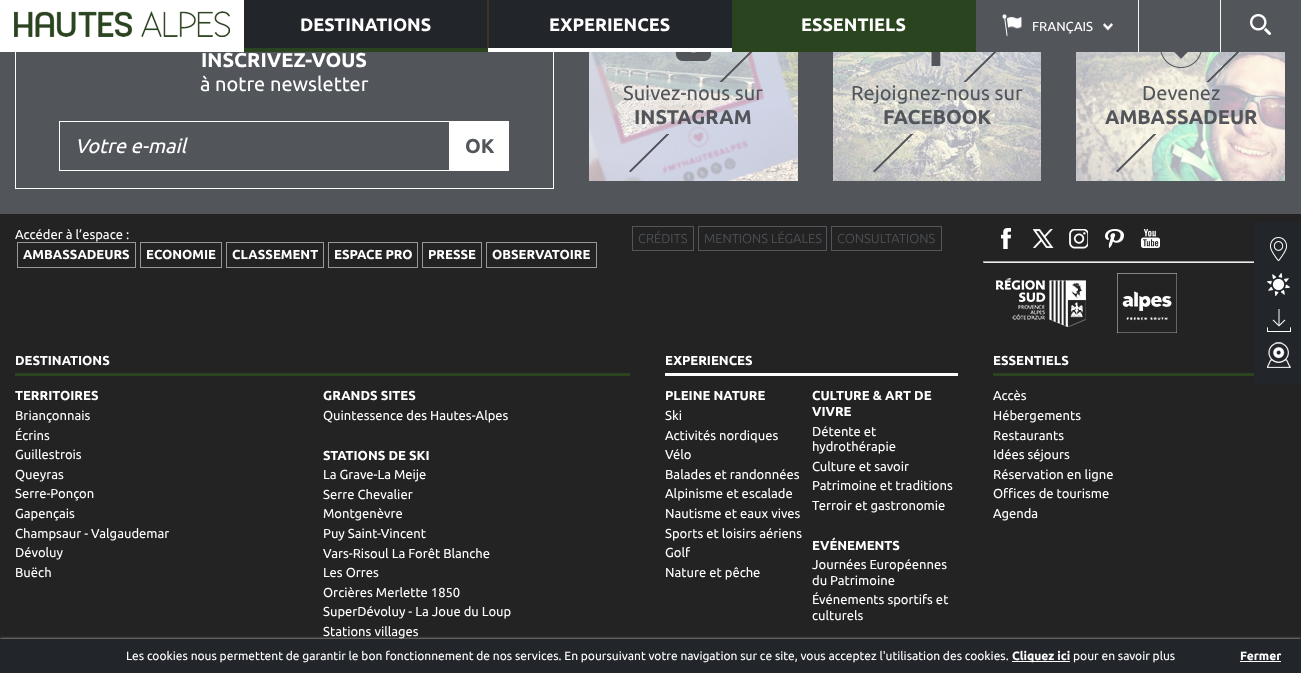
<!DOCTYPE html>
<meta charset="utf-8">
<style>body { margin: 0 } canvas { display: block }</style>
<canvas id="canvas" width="1301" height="673"></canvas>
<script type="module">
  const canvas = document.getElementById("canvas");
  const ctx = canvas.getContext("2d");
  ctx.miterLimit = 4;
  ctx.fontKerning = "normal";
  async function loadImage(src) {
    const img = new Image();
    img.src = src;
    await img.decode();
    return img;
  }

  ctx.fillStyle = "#52565b";
  ctx.fillRect(0, 0, 1301, 673);
  ctx.strokeStyle = "#ffffff";
  ctx.strokeRect(15.5, -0.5, 538, 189);
  ctx.fillStyle = "#ffffff";
  ctx.fillRect(0, 0, 244, 52);
  ctx.drawImage(await loadImage("img1.png"), 14, 11, 216, 26);
  ctx.fillStyle = "#22252a";
  ctx.fillRect(244, 0, 243, 48);
  ctx.fillStyle = "#29441f";
  ctx.fillRect(244, 48, 244, 4);
  ctx.font = "bold 18px Ubuntu";
  ctx.fillStyle = "#ffffff";
  ctx.fillText("DESTINATIONS", 300, 31);
  ctx.fillStyle = "#22252a";
  ctx.fillRect(489, 0, 243, 48);
  ctx.fillStyle = "#ffffff";
  ctx.fillRect(488, 48, 244, 4);
  ctx.fillStyle = "#3a3728";
  ctx.fillRect(487, 0, 2, 48);
  ctx.fillStyle = "#ffffff";
  ctx.fillText("EXPERIENCES", 549, 31);
  ctx.fillStyle = "#29441f";
  ctx.fillRect(732, 0, 244, 52);
  ctx.fillStyle = "#ffffff";
  ctx.fillText("ESSENTIELS", 801, 31);
  ctx.drawImage(await loadImage("img2.png"), 1002, 14, 111, 23);
  ctx.font = "13px Ubuntu";
  ctx.fillText("FRANÇAIS", 1032, 31);
  ctx.fillStyle = "#f5f5f5";
  ctx.fillRect(1138, 0, 1, 52);
  ctx.fillRect(1220, 0, 1, 52);
  ctx.drawImage(await loadImage("img3.png"), 1250, 14, 21, 21);
  ctx.font = "bold 20px Ubuntu";
  ctx.fillStyle = "#ffffff";
  ctx.fillText("INSCRIVEZ-VOUS", 201, 67);
  ctx.font = "20px Ubuntu";
  ctx.fillText("à notre newsletter", 200, 91);
  ctx.strokeRect(59.5, 121.5, 449, 49);
  ctx.font = "italic 20px Ubuntu";
  ctx.fillText("Votre e-mail", 75, 153);
  ctx.fillRect(449, 122, 59, 48);
  ctx.font = "bold 20px Ubuntu";
  ctx.fillStyle = "#52565b";
  ctx.fillText("OK", 465, 153);
  ctx.drawImage(await loadImage("img4.png"), 589, 52, 209, 129);
  ctx.drawImage(await loadImage("img6.png"), 676, 52, 35, 9);
  ctx.font = "20px Ubuntu";
  ctx.fillText("Suivez-nous sur", 623, 100);
  ctx.font = "bold 20px Ubuntu";
  ctx.fillText("INSTAGRAM", 634, 124);
  ctx.drawImage(await loadImage("img5.png"), 629, 52, 123, 121);
  ctx.drawImage(await loadImage("img7.png"), 629, 52, 123, 121);
  ctx.drawImage(await loadImage("img8.png"), 833, 52, 208, 129);
  ctx.drawImage(await loadImage("img10.png"), 931, 52, 10, 14);
  ctx.font = "20px Ubuntu";
  ctx.fillText("Rejoignez-nous sur", 851, 100);
  ctx.font = "bold 20px Ubuntu";
  ctx.fillText("FACEBOOK", 883, 124);
  ctx.drawImage(await loadImage("img9.png"), 873, 52, 123, 121);
  ctx.drawImage(await loadImage("img11.png"), 873, 52, 123, 121);
  ctx.drawImage(await loadImage("img12.png"), 1076, 52, 209, 129);
  ctx.drawImage(await loadImage("img14.png"), 1160, 52, 42, 16);
  ctx.font = "20px Ubuntu";
  ctx.fillText("Devenez", 1142, 100);
  ctx.font = "bold 20px Ubuntu";
  ctx.fillText("AMBASSADEUR", 1105, 124);
  ctx.drawImage(await loadImage("img13.png"), 1116, 52, 123, 121);
  ctx.drawImage(await loadImage("img15.png"), 1116, 52, 123, 121);
  ctx.fillStyle = "#232323";
  ctx.fillRect(0, 214, 1301, 425);
  ctx.font = "13px Ubuntu";
  ctx.fillStyle = "#ffffff";
  ctx.fillText("Accéder à l’espace :", 15, 239);
  ctx.strokeStyle = "#989898";
  ctx.strokeRect(17.5, 242.5, 118, 25);
  ctx.font = "bold 13px Ubuntu";
  ctx.fillText("AMBASSADEURS", 23, 259);
  ctx.strokeRect(140.5, 242.5, 81, 25);
  ctx.fillText("ECONOMIE", 146, 259);
  ctx.strokeRect(226.5, 242.5, 97, 25);
  ctx.fillText("CLASSEMENT", 232, 259);
  ctx.strokeRect(328.5, 242.5, 89, 25);
  ctx.fillText("ESPACE PRO", 334, 259);
  ctx.strokeRect(422.5, 242.5, 59, 25);
  ctx.fillText("PRESSE", 428, 259);
  ctx.strokeRect(486.5, 242.5, 110, 25);
  ctx.fillText("OBSERVATOIRE", 492, 259);
  ctx.strokeStyle = "#52565b";
  ctx.strokeRect(632.5, 226.5, 61, 24);
  ctx.font = "300 13px Ubuntu";
  ctx.fillStyle = "#52565b";
  ctx.fillText("CRÉDITS", 638, 243);
  ctx.strokeRect(698.5, 226.5, 128, 24);
  ctx.fillText("MENTIONS LÉGALES", 704, 243);
  ctx.strokeRect(831.5, 226.5, 110, 24);
  ctx.fillText("CONSULTATIONS", 837, 243);
  ctx.drawImage(await loadImage("img16.png"), 1001, 228, 10, 21);
  ctx.drawImage(await loadImage("img17.png"), 1033, 229, 21, 19);
  ctx.drawImage(await loadImage("img18.png"), 1069, 229, 19, 20);
  ctx.drawImage(await loadImage("img19.png"), 1105, 229, 19, 19);
  ctx.drawImage(await loadImage("img20.png"), 1141, 229, 19, 19);
  ctx.fillStyle = "#9f9f9f";
  ctx.fillRect(983, 261, 271, 1);
  ctx.fillStyle = "#eeeeee";
  ctx.fillRect(983, 262, 271, 1);
  ctx.fillStyle = "#9f9f9f";
  ctx.fillRect(983, 261, 1, 2);
  ctx.drawImage(await loadImage("img21.png"), 996, 278, 90, 49);
  ctx.drawImage(await loadImage("img22.png"), 1117, 273, 60, 60);
  ctx.fillStyle = "#29441f";
  ctx.fillRect(15, 373, 615, 3);
  ctx.font = "bold 13px Ubuntu";
  ctx.fillStyle = "#ffffff";
  ctx.fillText("DESTINATIONS", 15, 365);
  ctx.fillText("TERRITOIRES", 15, 400);
  ctx.font = "13px Ubuntu";
  ctx.fillText("Briançonnais", 15, 420);
  ctx.fillText("Écrins", 15, 440);
  ctx.fillText("Guillestrois", 15, 459);
  ctx.fillText("Queyras", 15, 479);
  ctx.fillText("Serre-Ponçon", 15, 498);
  ctx.fillText("Gapençais", 15, 518);
  ctx.fillText("Champsaur - Valgaudemar", 15, 538);
  ctx.fillText("Dévoluy", 15, 557);
  ctx.fillText("Buëch", 15, 577);
  ctx.font = "bold 13px Ubuntu";
  ctx.fillText("GRANDS SITES", 323, 400);
  ctx.font = "13px Ubuntu";
  ctx.fillText("Quintessence des Hautes-Alpes", 323, 420);
  ctx.font = "bold 13px Ubuntu";
  ctx.fillText("STATIONS DE SKI", 323, 460);
  ctx.font = "13px Ubuntu";
  ctx.fillText("La Grave-La Meije", 323, 479);
  ctx.fillText("Serre Chevalier", 323, 499);
  ctx.fillText("Montgenèvre", 323, 518);
  ctx.fillText("Puy Saint-Vincent", 323, 538);
  ctx.fillText("Vars-Risoul La Forêt Blanche", 323, 558);
  ctx.fillText("Les Orres", 323, 577);
  ctx.fillText("Orcières Merlette 1850", 323, 597);
  ctx.fillText("SuperDévoluy - La Joue du Loup", 323, 616);
  ctx.fillText("Stations villages", 323, 636);
  ctx.fillRect(665, 373, 293, 3);
  ctx.font = "bold 13px Ubuntu";
  ctx.fillText("EXPERIENCES", 665, 365);
  ctx.fillText("PLEINE NATURE", 665, 400);
  ctx.font = "13px Ubuntu";
  ctx.fillText("Ski", 665, 420);
  ctx.fillText("Activités nordiques", 665, 440);
  ctx.fillText("Vélo", 665, 459);
  ctx.fillText("Balades et randonnées", 665, 479);
  ctx.fillText("Alpinisme et escalade", 665, 498);
  ctx.fillText("Nautisme et eaux vives", 665, 518);
  ctx.fillText("Sports et loisirs aériens", 665, 538);
  ctx.fillText("Golf", 665, 557);
  ctx.fillText("Nature et pêche", 665, 577);
  ctx.font = "bold 13px Ubuntu";
  ctx.fillText("CULTURE & ART DE", 812, 400);
  ctx.fillText("VIVRE", 812, 416);
  ctx.font = "13px Ubuntu";
  ctx.fillText("Détente et", 812, 436);
  ctx.fillText("hydrothérapie", 812, 451);
  ctx.fillText("Culture et savoir", 812, 471);
  ctx.fillText("Patrimoine et traditions", 812, 490);
  ctx.fillText("Terroir et gastronomie", 812, 510);
  ctx.font = "bold 13px Ubuntu";
  ctx.fillText("EVÉNEMENTS", 812, 550);
  ctx.font = "13px Ubuntu";
  ctx.fillText("Journées Européennes", 812, 569);
  ctx.fillText("du Patrimoine", 812, 585);
  ctx.fillText("Événements sportifs et", 812, 604);
  ctx.fillText("culturels", 812, 620);
  ctx.fillStyle = "#29441f";
  ctx.fillRect(993, 373, 261, 3);
  ctx.font = "bold 13px Ubuntu";
  ctx.fillStyle = "#ffffff";
  ctx.fillText("ESSENTIELS", 993, 365);
  ctx.font = "13px Ubuntu";
  ctx.fillText("Accès", 993, 400);
  ctx.fillText("Hébergements", 993, 420);
  ctx.fillText("Restaurants", 993, 440);
  ctx.fillText("Idées séjours", 993, 459);
  ctx.fillText("Réservation en ligne", 993, 479);
  ctx.fillText("Offices de tourisme", 993, 498);
  ctx.fillText("Agenda", 993, 518);
  ctx.fillStyle = "#cccccc";
  ctx.filter = "blur(1.5px)";
  ctx.beginPath();
  ctx.rect(0, 639, 1301, 34);
  ctx.fill();
  ctx.filter = "none";
  ctx.fillStyle = "#22252a";
  ctx.fillRect(0, 639, 1301, 34);
  ctx.font = "12px Ubuntu";
  ctx.fillStyle = "#ffffff";
  ctx.fillText("Les cookies nous permettent de garantir le bon fonctionnement de nos services. En poursuivant votre navigation sur ce site, vous acceptez l'utilisation des cookies.", 126, 660);
  ctx.fillRect(1012, 661, 58, 1);
  ctx.font = "bold 12px Ubuntu";
  ctx.fillText("Cliquez ici", 1012, 660);
  ctx.font = "12px Ubuntu";
  ctx.fillText("pour en savoir plus", 1073, 660);
  ctx.font = "bold 12px Ubuntu";
  ctx.fillText("Fermer", 1240, 660);
  ctx.fillRect(1240, 661, 41, 1);
  ctx.fillStyle = "#22252a";
  ctx.fillRect(1254, 222, 47, 162);
  ctx.drawImage(await loadImage("img23.png"), 1270, 237, 17, 24);
  ctx.drawImage(await loadImage("img24.png"), 1267, 273, 23, 23);
  ctx.drawImage(await loadImage("img25.png"), 1267, 309, 24, 23);
  ctx.drawImage(await loadImage("img26.png"), 1267, 342, 24, 26);
</script>
